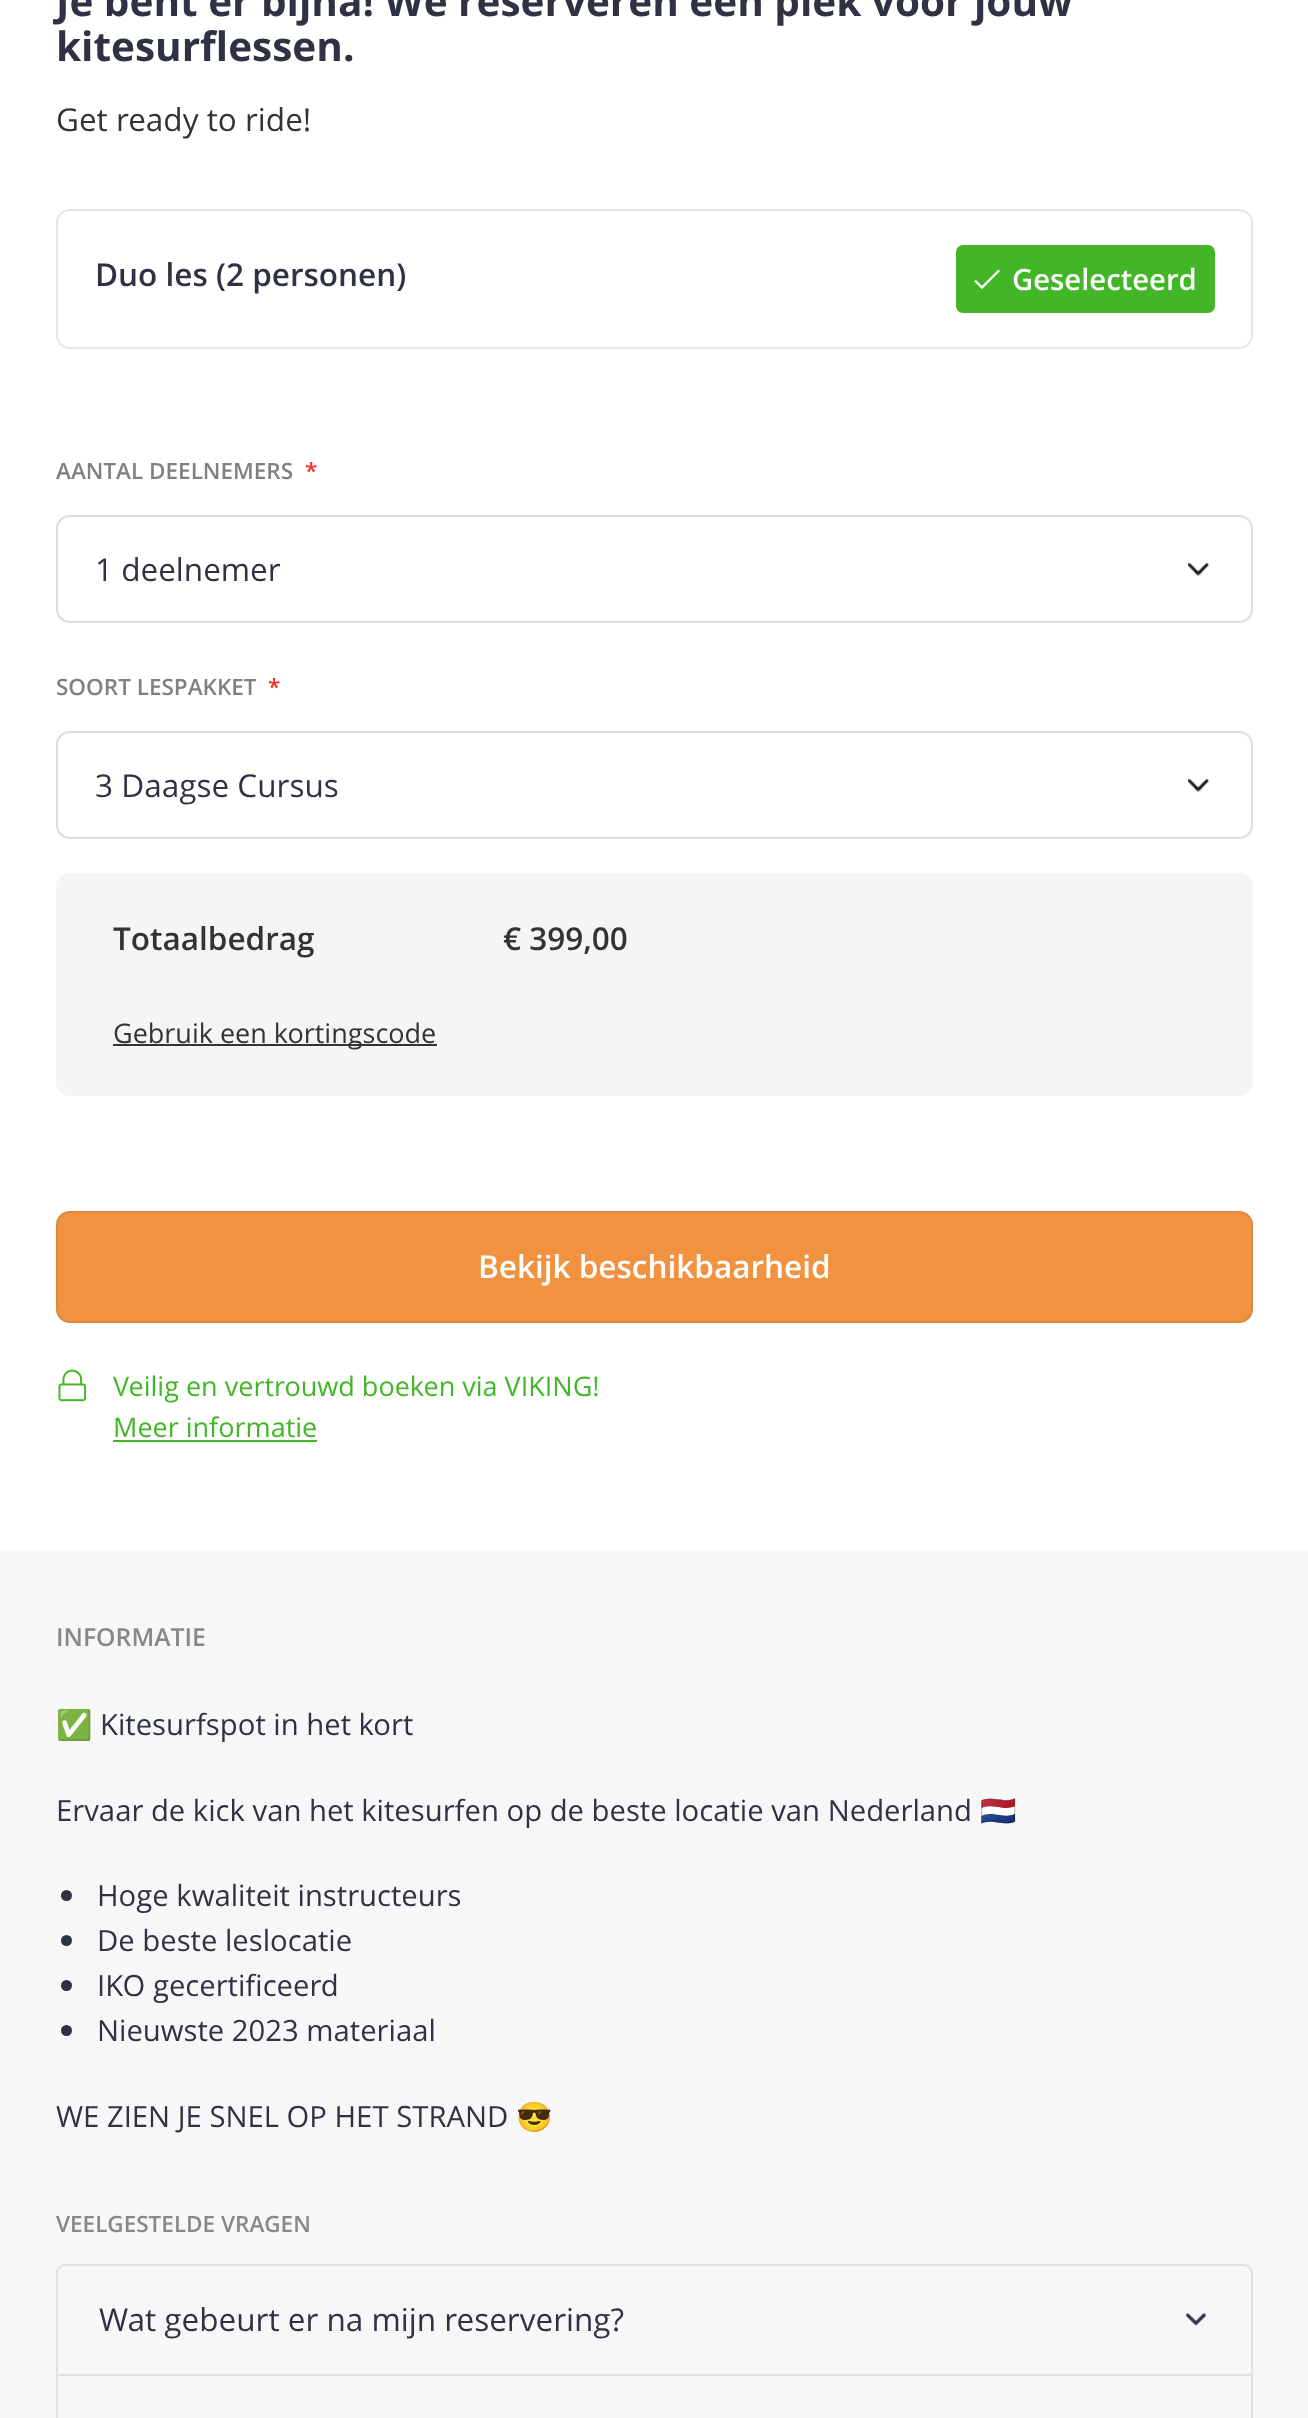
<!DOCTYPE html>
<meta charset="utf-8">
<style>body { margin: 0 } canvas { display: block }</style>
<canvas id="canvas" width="1308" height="2418"></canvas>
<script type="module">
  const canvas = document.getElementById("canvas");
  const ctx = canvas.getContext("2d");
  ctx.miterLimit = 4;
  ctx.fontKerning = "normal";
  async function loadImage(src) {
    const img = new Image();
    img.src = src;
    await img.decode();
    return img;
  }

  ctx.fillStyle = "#ffffff";
  ctx.fillRect(0, 0, 1308, 2418);
  ctx.font = "bold 40.5px Open Sans";
  ctx.fillStyle = "#2f3243";
  ctx.fillText("Je bent er bijna! We reserveren een plek voor jouw", 56, 16);
  ctx.fillText("kitesurflessen.", 56, 61);
  ctx.font = "31.5px Open Sans";
  ctx.fillStyle = "#333333";
  ctx.fillText("Get ready to ride!", 56, 131);
  ctx.beginPath();
  ctx.roundRect(57, 210, 1195, 138, 13);
  ctx.strokeStyle = "rgba(0, 0, 0, 0.1)";
  ctx.lineWidth = 2;
  ctx.stroke();
  ctx.font = "600 31.5px Open Sans";
  ctx.fillStyle = "#2f3243";
  ctx.fillText("Duo les (2 personen)", 95, 286);
  ctx.fillStyle = "#43b628";
  ctx.beginPath();
  ctx.roundRect(956, 245, 259, 68, 7);
  ctx.fill();
  ctx.drawImage(await loadImage("img1.png"), 974, 269, 26, 20);
  ctx.font = "600 29.25px Open Sans";
  ctx.fillStyle = "#ffffff";
  ctx.fillText("Geselecteerd", 1012, 290);
  ctx.font = "600 22.5px Open Sans";
  ctx.fillStyle = "#808080";
  ctx.fillText("AANTAL DEELNEMERS", 56, 479);
  ctx.fillStyle = "#ef312c";
  ctx.fillText("*", 305, 479);
  ctx.drawImage(await loadImage("img2.png"), 1188, 563, 21, 13);
  ctx.beginPath();
  ctx.roundRect(57, 516, 1195, 106, 13);
  ctx.strokeStyle = "#dddddd";
  ctx.stroke();
  ctx.font = "31.5px Open Sans";
  ctx.fillStyle = "#2f3243";
  ctx.fillText("1 deelnemer", 95, 581);
  ctx.font = "600 22.5px Open Sans";
  ctx.fillStyle = "#808080";
  ctx.fillText("SOORT LESPAKKET", 56, 695);
  ctx.fillStyle = "#ef312c";
  ctx.fillText("*", 268, 695);
  ctx.drawImage(await loadImage("img2.png"), 1188, 779, 21, 13);
  ctx.beginPath();
  ctx.roundRect(57, 732, 1195, 106, 13);
  ctx.stroke();
  ctx.font = "31.5px Open Sans";
  ctx.fillStyle = "#2f3243";
  ctx.fillText("3 Daagse Cursus", 95, 797);
  ctx.fillStyle = "#f5f5f5";
  ctx.beginPath();
  ctx.roundRect(56, 873, 1197, 223, 14);
  ctx.fill();
  ctx.font = "600 31.5px Open Sans";
  ctx.fillStyle = "#333333";
  ctx.fillText("Totaalbedrag", 113, 950);
  ctx.fillText("€ 399,00", 503, 950);
  ctx.fillRect(113, 1044, 324, 2);
  ctx.font = "27px Open Sans";
  ctx.fillText("Gebruik een kortingscode", 113, 1043);
  ctx.fillStyle = "#f09240";
  ctx.beginPath();
  ctx.roundRect(56, 1211, 1197, 112, 14);
  ctx.fill();
  ctx.beginPath();
  ctx.roundRect(57, 1212, 1195, 110, 13);
  ctx.strokeStyle = "rgba(0, 0, 0, 0.07)";
  ctx.stroke();
  ctx.font = "600 31.5px Open Sans";
  ctx.fillStyle = "#ffffff";
  ctx.fillText("Bekijk beschikbaarheid", 478, 1278);
  ctx.drawImage(await loadImage("img3.png"), 58, 1369, 29, 33);
  ctx.font = "27px Open Sans";
  ctx.fillStyle = "#43b628";
  ctx.fillText("Veilig en vertrouwd boeken via VIKING!", 113, 1396);
  ctx.fillText("Meer informatie", 113, 1437);
  ctx.fillRect(113, 1440, 204, 2);
  ctx.fillStyle = "#f7f7f7";
  ctx.fillRect(0, 1550, 1308, 868);
  ctx.font = "600 24.75px Open Sans";
  ctx.fillStyle = "#888888";
  ctx.fillText("INFORMATIE", 56, 1646);
  ctx.font = "29.25px Noto Color Emoji";
  ctx.fillStyle = "#2f3243";
  ctx.fillText("✅", 56, 1735);
  ctx.font = "29.25px Open Sans";
  ctx.fillText("Kitesurfspot in het kort", 100, 1735);
  ctx.fillText("Ervaar de kick van het kitesurfen op de beste locatie van Nederland", 56, 1821);
  ctx.font = "29.25px Noto Color Emoji";
  ctx.fillText("🇳🇱", 980, 1821);
  ctx.beginPath();
  ctx.arc(66.5, 1895.5, 5.5, 0, Math.PI * 2);
  ctx.fill();
  ctx.font = "29.25px Open Sans";
  ctx.fillText("Hoge kwaliteit instructeurs", 97, 1906);
  ctx.beginPath();
  ctx.arc(66.5, 1940.5, 5.5, 0, Math.PI * 2);
  ctx.fill();
  ctx.fillText("De beste leslocatie", 97, 1951);
  ctx.beginPath();
  ctx.arc(66.5, 1985.5, 5.5, 0, Math.PI * 2);
  ctx.fill();
  ctx.fillText("IKO gecertificeerd", 97, 1996);
  ctx.beginPath();
  ctx.arc(66.5, 2030.5, 5.5, 0, Math.PI * 2);
  ctx.fill();
  ctx.fillText("Nieuwste 2023 materiaal", 97, 2041);
  ctx.fillText("WE ZIEN JE SNEL OP HET STRAND", 56, 2127);
  ctx.font = "29.25px Noto Color Emoji";
  ctx.fillText("😎", 516, 2127);
  ctx.font = "600 22.5px Open Sans";
  ctx.fillStyle = "#888888";
  ctx.fillText("VEELGESTELDE VRAGEN", 56, 2232);
  ctx.beginPath();
  ctx.roundRect(57, 2265, 1195, 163, 8);
  ctx.strokeStyle = "#e0e1e4";
  ctx.stroke();
  ctx.fillStyle = "#e0e1e4";
  ctx.fillRect(59, 2374, 1192, 2);
  ctx.font = "31.5px Open Sans";
  ctx.fillStyle = "#2f3243";
  ctx.fillText("Wat gebeurt er na mijn reservering?", 99, 2331);
  ctx.drawImage(await loadImage("img4.png"), 1186, 2313, 20, 13);
</script>
